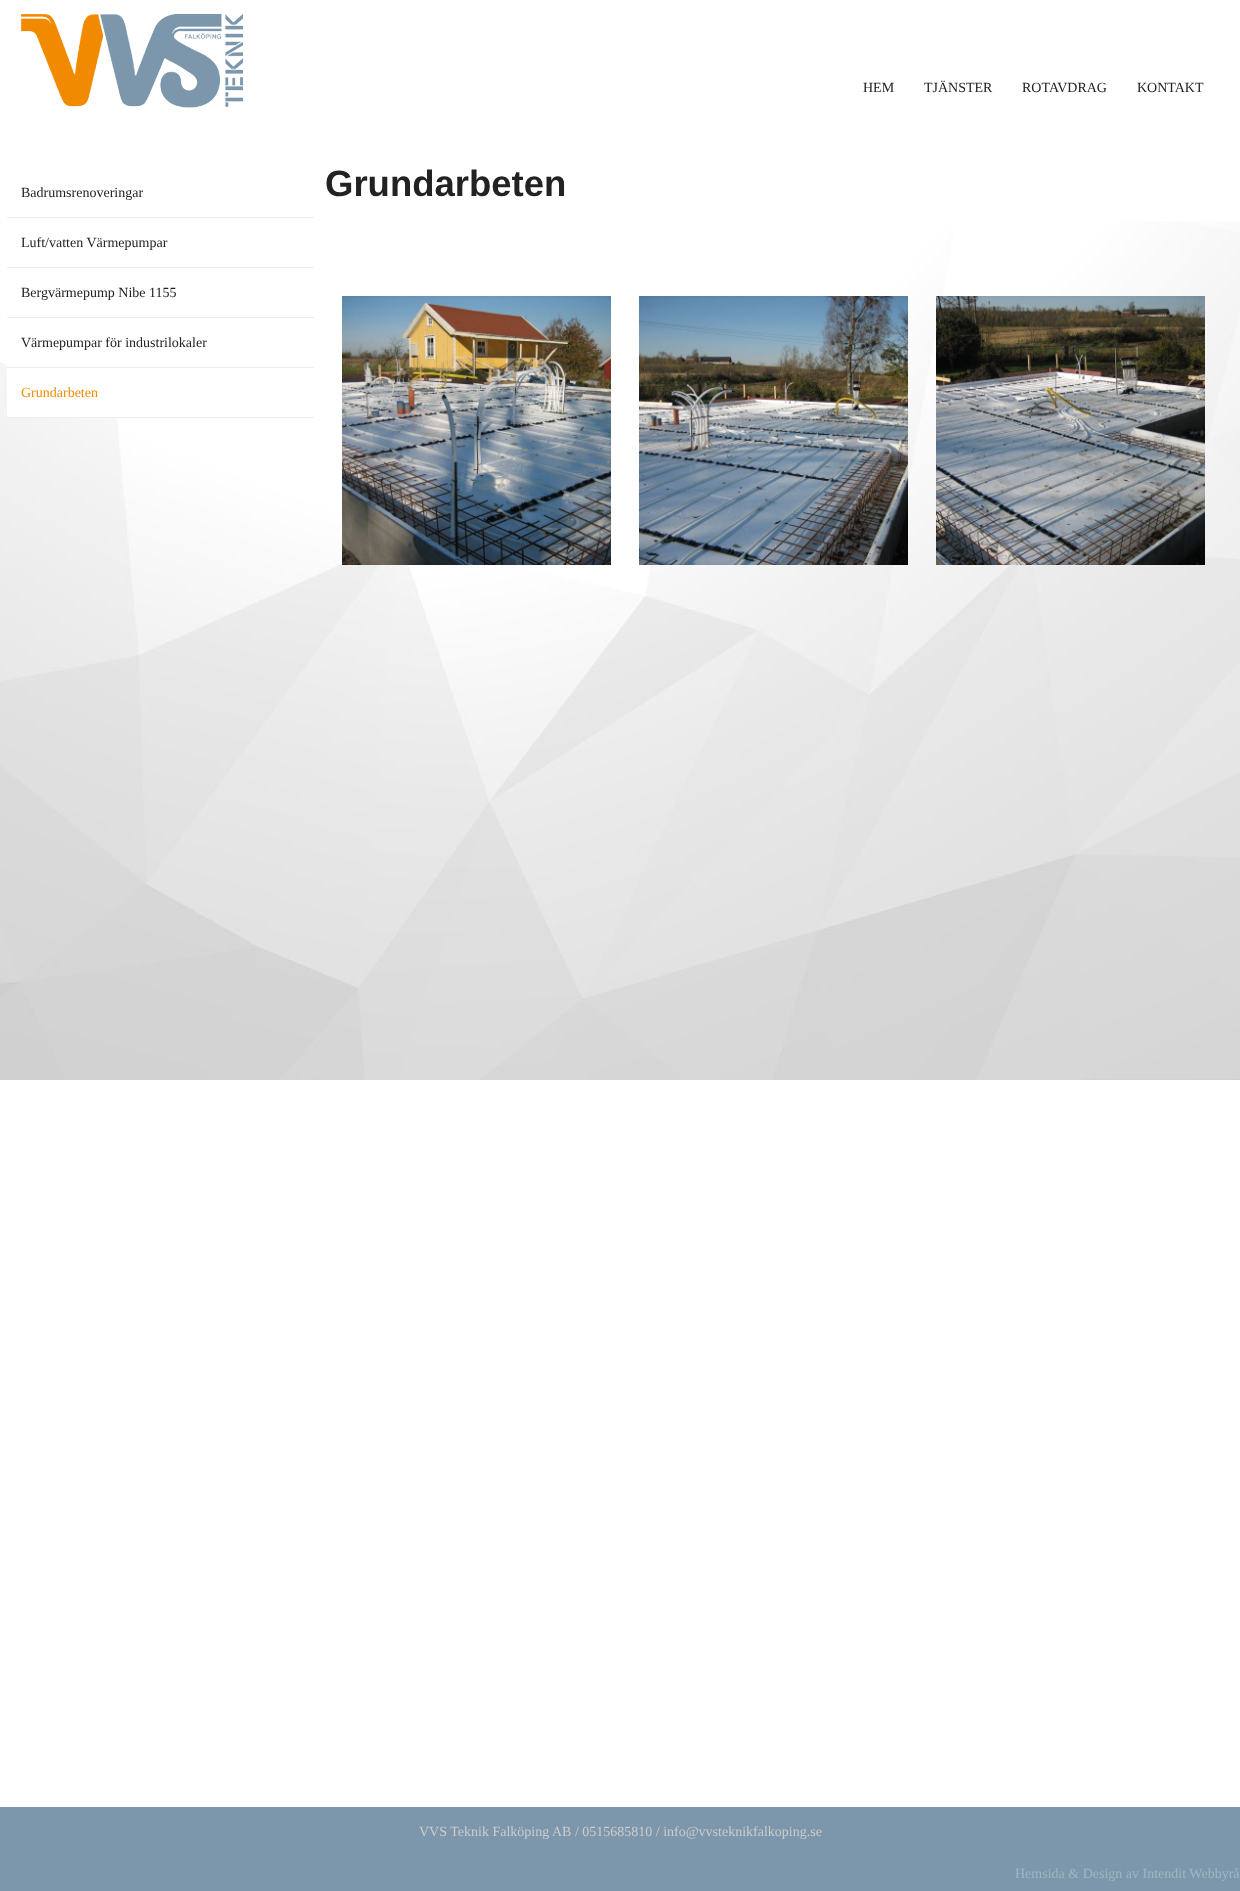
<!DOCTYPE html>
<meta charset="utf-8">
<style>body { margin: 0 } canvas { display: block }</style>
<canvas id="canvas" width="1240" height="1891"></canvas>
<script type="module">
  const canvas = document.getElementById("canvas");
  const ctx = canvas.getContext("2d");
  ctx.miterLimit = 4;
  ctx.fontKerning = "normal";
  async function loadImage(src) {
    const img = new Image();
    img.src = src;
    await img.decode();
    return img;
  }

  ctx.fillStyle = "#ffffff";
  ctx.fillRect(0, 0, 1240, 1891);
  ctx.drawImage(await loadImage("img1.png"), 0, 221, 1240, 859);
  ctx.drawImage(await loadImage("img2.png"), 21, 14, 222, 94);
  ctx.font = "14px Liberation Serif";
  ctx.fillStyle = "#222222";
  ctx.fillText("HEM", 863, 92);
  ctx.fillText("TJÄNSTER", 924, 92);
  ctx.fillText("ROTAVDRAG", 1022, 92);
  ctx.fillText("KONTAKT", 1137, 92);
  ctx.font = "bold 36.5px Liberation Sans";
  ctx.fillText("Grundarbeten", 325, 196);
  ctx.drawImage(await loadImage("img3.png"), 342, 296, 269, 269);
  ctx.drawImage(await loadImage("img4.png"), 639, 296, 269, 269);
  ctx.drawImage(await loadImage("img5.png"), 936, 296, 269, 269);
  ctx.fillStyle = "#eeeeee";
  ctx.fillRect(7, 217, 307, 1);
  ctx.font = "14px Liberation Serif";
  ctx.fillStyle = "#222222";
  ctx.fillText("Badrumsrenoveringar", 21, 197);
  ctx.fillStyle = "#eeeeee";
  ctx.fillRect(7, 267, 307, 1);
  ctx.fillStyle = "#222222";
  ctx.fillText("Luft/vatten Värmepumpar", 21, 247);
  ctx.fillStyle = "#eeeeee";
  ctx.fillRect(7, 317, 307, 1);
  ctx.fillStyle = "#222222";
  ctx.fillText("Bergvärmepump Nibe 1155", 21, 297);
  ctx.fillStyle = "#ffffff";
  ctx.fillRect(7, 365, 4, 2);
  ctx.fillStyle = "#eeeeee";
  ctx.fillRect(7, 367, 307, 1);
  ctx.fillStyle = "#222222";
  ctx.fillText("Värmepumpar för industrilokaler", 21, 347);
  ctx.fillStyle = "#ffffff";
  ctx.fillRect(7, 368, 110, 49);
  ctx.fillStyle = "#eeeeee";
  ctx.fillRect(7, 417, 307, 1);
  ctx.fillStyle = "#f28a00";
  ctx.fillText("Grundarbeten", 21, 397);
  ctx.fillStyle = "#7c97ab";
  ctx.fillRect(0, 1807, 1240, 84);
  ctx.fillStyle = "#cccccc";
  ctx.fillText("VVS Teknik Falköping AB / 0515685810 / info@vvsteknikfalkoping.se", 419, 1836);
  ctx.fillStyle = "#a2b5c3";
  ctx.fillText("Hemsida & Design av Intendit Webbyrå", 1015, 1878);
</script>
